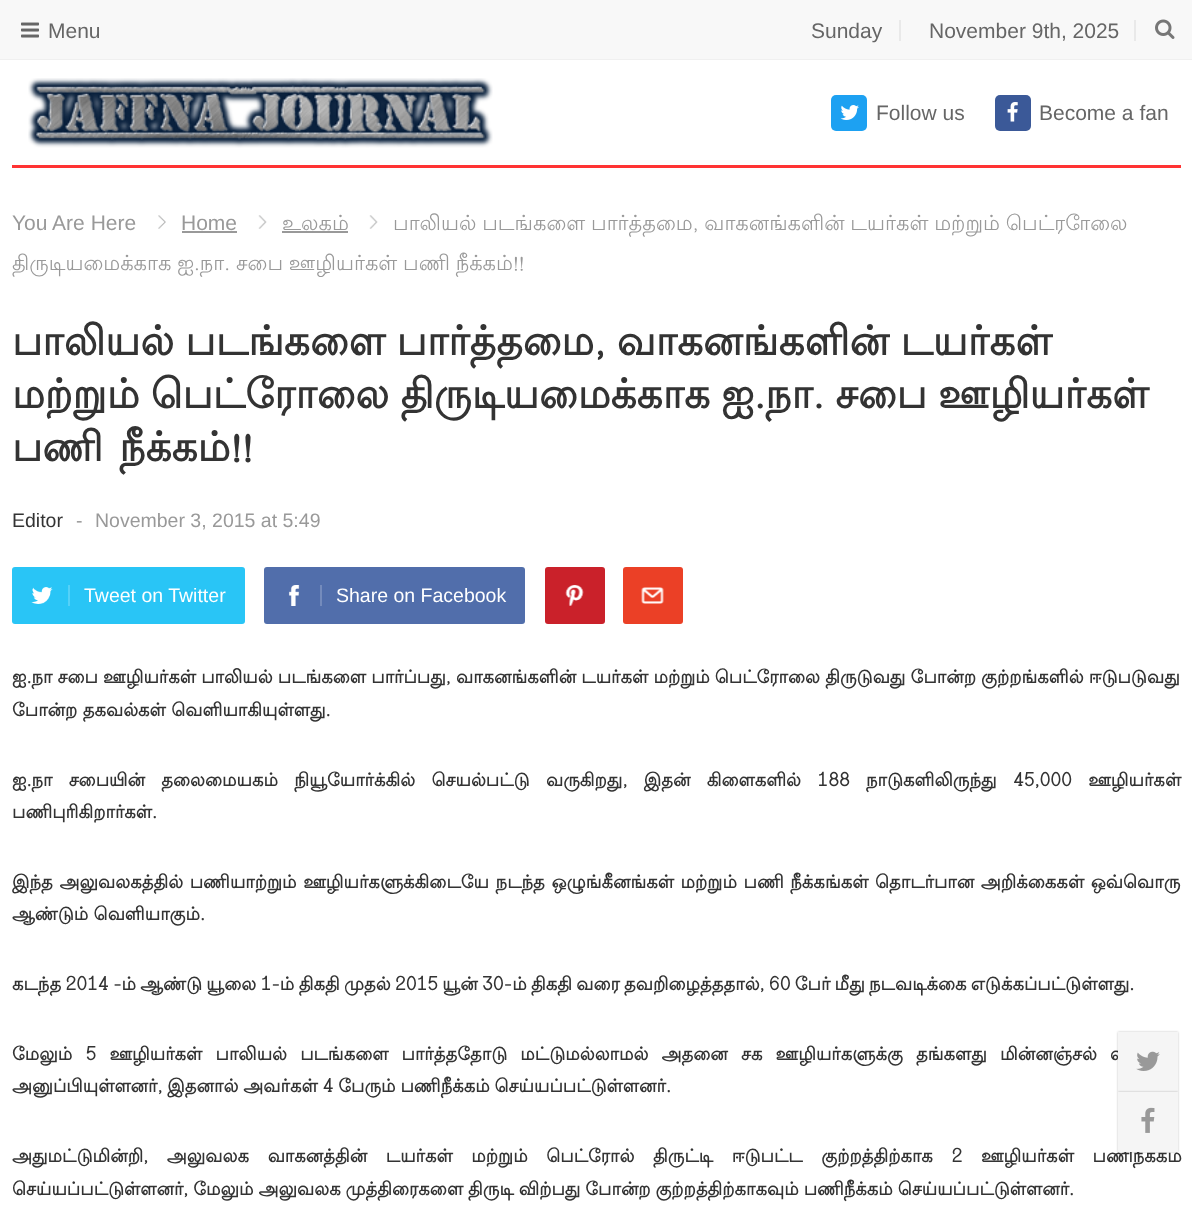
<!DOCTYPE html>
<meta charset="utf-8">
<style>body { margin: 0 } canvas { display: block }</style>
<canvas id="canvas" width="1192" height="1227"></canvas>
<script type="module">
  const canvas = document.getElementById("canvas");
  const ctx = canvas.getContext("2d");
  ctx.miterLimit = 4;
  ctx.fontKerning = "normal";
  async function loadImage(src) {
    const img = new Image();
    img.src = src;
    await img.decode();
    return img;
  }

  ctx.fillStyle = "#ffffff";
  ctx.fillRect(0, 0, 1192, 1227);
  ctx.fillStyle = "#f8f8f8";
  ctx.fillRect(0, 0, 1192, 59);
  ctx.fillStyle = "#f0f0f0";
  ctx.fillRect(0, 59, 1192, 1);
  ctx.fillStyle = "#e9e9e9";
  ctx.fillRect(899, 20, 2, 21);
  ctx.font = "21px Liberation Sans";
  ctx.fillStyle = "#666666";
  ctx.fillText("Sunday", 811, 38);
  ctx.fillStyle = "#e9e9e9";
  ctx.fillRect(1134, 20, 2, 21);
  ctx.fillStyle = "#666666";
  ctx.fillText("November 9th, 2025", 929, 38);
  ctx.drawImage(await loadImage("img1.png"), 1155, 19, 20, 20);
  ctx.drawImage(await loadImage("img2.png"), 21, 22, 18, 16);
  ctx.fillText("Menu", 48, 38);
  ctx.drawImage(await loadImage("img3.png"), 28, 78, 465, 70);
  ctx.fillStyle = "#1da1f2";
  ctx.beginPath();
  ctx.roundRect(831, 95, 36, 36, 5);
  ctx.fill();
  ctx.drawImage(await loadImage("img4.png"), 840, 105, 19, 15);
  ctx.fillStyle = "#666666";
  ctx.fillText("Follow us", 876, 120);
  ctx.fillStyle = "#3b5998";
  ctx.beginPath();
  ctx.roundRect(995, 95, 36, 36, 5);
  ctx.fill();
  ctx.drawImage(await loadImage("img5.png"), 1007, 102, 11, 20);
  ctx.fillStyle = "#666666";
  ctx.fillText("Become a fan", 1039, 120);
  ctx.fillStyle = "#ff3333";
  ctx.fillRect(12, 165, 1169, 3);
  ctx.drawImage(await loadImage("img6.png"), 369, 215, 9, 14);
  ctx.wordSpacing = "-0.5px";
  ctx.font = "21px Lohit Tamil";
  ctx.fillStyle = "#999999";
  ctx.fillText("பாலியல் படங்களை பார்த்தமை, வாகனங்களின் டயர்கள் மற்றும் பெட்ரோலை", 393, 230);
  ctx.fillText("திருடியமைக்காக ஐ.நா. சபை ஊழியர்கள் பணி நீக்கம்!!", 12, 270);
  ctx.wordSpacing = "0px";
  ctx.font = "21px Liberation Sans";
  ctx.fillText("You Are Here", 12, 230);
  ctx.drawImage(await loadImage("img7.png"), 158, 215, 8, 14);
  ctx.fillText("Home", 181, 230);
  ctx.fillRect(182, 231, 55, 2);
  ctx.drawImage(await loadImage("img8.png"), 258, 215, 9, 14);
  ctx.font = "21px Lohit Tamil";
  ctx.fillText("உலகம்", 282, 230);
  ctx.fillRect(282, 231, 66, 2);
  ctx.wordSpacing = "-1px";
  ctx.font = "bold 40.8px Lohit Tamil";
  ctx.fillStyle = "#333333";
  ctx.fillText("பாலியல் படங்களை பார்த்தமை, வாகனங்களின் டயர்கள்", 12, 355);
  ctx.fillText("மற்றும் பெட்ரோலை திருடியமைக்காக ஐ.நா. சபை ஊழியர்கள்", 12, 408);
  ctx.wordSpacing = "4px";
  ctx.fillText("பணி நீக்கம்!!", 12, 461);
  ctx.wordSpacing = "0px";
  ctx.font = "19.5px Liberation Sans";
  ctx.fillText("Editor", 12, 527);
  ctx.fillStyle = "#999999";
  ctx.fillText("-", 76, 527);
  ctx.fillText("November 3, 2015 at 5:49", 95, 527);
  ctx.fillStyle = "#29c5f6";
  ctx.beginPath();
  ctx.roundRect(12, 567, 233, 57, 3);
  ctx.fill();
  ctx.drawImage(await loadImage("img9.png"), 31, 587, 22, 17);
  ctx.fillStyle = "#54d1f8";
  ctx.fillRect(68, 585, 2, 21);
  ctx.fillStyle = "#ffffff";
  ctx.fillText("Tweet on Twitter", 84, 602);
  ctx.fillStyle = "#516eab";
  ctx.beginPath();
  ctx.roundRect(264, 567, 261, 57, 3);
  ctx.fill();
  ctx.drawImage(await loadImage("img10.png"), 288, 585, 12, 21);
  ctx.fillStyle = "#748bbc";
  ctx.fillRect(320, 585, 2, 21);
  ctx.fillStyle = "#ffffff";
  ctx.fillText("Share on Facebook", 336, 602);
  ctx.fillStyle = "#ca212a";
  ctx.beginPath();
  ctx.roundRect(545, 567, 60, 57, 3);
  ctx.fill();
  ctx.drawImage(await loadImage("img11.png"), 565, 585, 19, 21);
  ctx.fillStyle = "#eb4026";
  ctx.beginPath();
  ctx.roundRect(623, 567, 60, 57, 3);
  ctx.fill();
  ctx.drawImage(await loadImage("img12.png"), 641, 587, 23, 17);
  ctx.wordSpacing = "-0.25px";
  ctx.font = "bold 18px Lohit Tamil";
  ctx.fillStyle = "#333333";
  ctx.fillText("ஐ.நா சபை ஊழியர்கள் பாலியல் படங்களை பார்ப்பது, வாகனங்களின் டயர்கள் மற்றும் பெட்ரோலை திருடுவது போன்ற குற்றங்களில் ஈடுபடுவது", 12, 683);
  ctx.wordSpacing = "0px";
  ctx.fillText("போன்ற தகவல்கள் வெளியாகியுள்ளது.", 12, 716);
  ctx.wordSpacing = "10.9px";
  ctx.fillText("ஐ.நா சபையின் தலைமையகம் நியூயோர்க்கில் செயல்பட்டு வருகிறது, இதன் கிளைகளில் 188 நாடுகளிலிருந்து 45,000 ஊழியர்கள்", 12, 786);
  ctx.wordSpacing = "0px";
  ctx.fillText("பணிபுரிகிறார்கள்.", 12, 818);
  ctx.wordSpacing = "1.25px";
  ctx.fillText("இந்த அலுவலகத்தில் பணியாற்றும் ஊழியர்களுக்கிடையே நடந்த ஒழுங்கீனங்கள் மற்றும் பணி நீக்கங்கள் தொடர்பான அறிக்கைகள் ஒவ்வொரு", 12, 888);
  ctx.wordSpacing = "0px";
  ctx.fillText("ஆண்டும் வெளியாகும்.", 12, 920);
  ctx.wordSpacing = "-1.1px";
  ctx.fillText("கடந்த 2014 -ம் ஆண்டு யூலை 1-ம் திகதி முதல் 2015 யூன் 30-ம் திகதி வரை தவறிழைத்ததால், 60 பேர் மீது நடவடிக்கை எடுக்கப்பட்டுள்ளது.", 12, 990);
  ctx.wordSpacing = "7.75px";
  ctx.fillText("மேலும் 5 ஊழியர்கள் பாலியல் படங்களை பார்த்ததோடு மட்டுமல்லாமல் அதனை சக ஊழியர்களுக்கு தங்களது மின்னஞ்சல் வ", 12, 1060);
  ctx.wordSpacing = "-0.5px";
  ctx.fillText("அனுப்பியுள்ளனர், இதனால் அவர்கள் 4 பேரும் பணிநீக்கம் செய்யப்பட்டுள்ளனர்.", 12, 1092);
  ctx.wordSpacing = "13.25px";
  ctx.fillText("அதுமட்டுமின்றி, அலுவலக வாகனத்தின் டயர்கள் மற்றும் பெட்ரோல் திருட்டி ஈடுபட்ட குற்றத்திற்காக 2 ஊழியர்கள் பணிநீக்கம்", 12, 1162);
  ctx.wordSpacing = "-0.5px";
  ctx.fillText("செய்யப்பட்டுள்ளனர், மேலும் அலுவலக முத்திரைகளை திருடி விற்பது போன்ற குற்றத்திற்காகவும் பணிநீக்கம் செய்யப்பட்டுள்ளனர்.", 12, 1195);
  ctx.fillStyle = "rgba(0, 0, 0, 0.25)";
  ctx.filter = "blur(1px)";
  ctx.beginPath();
  ctx.rect(1118, 1032, 60, 60);
  ctx.fill();
  ctx.filter = "none";
  ctx.fillStyle = "#f5f5f5";
  ctx.fillRect(1118, 1032, 60, 60);
  ctx.drawImage(await loadImage("img13.png"), 1136, 1051, 24, 20);
  ctx.fillStyle = "rgba(0, 0, 0, 0.25)";
  ctx.filter = "blur(1px)";
  ctx.beginPath();
  ctx.rect(1118, 1092, 60, 60);
  ctx.fill();
  ctx.filter = "none";
  ctx.fillStyle = "#f5f5f5";
  ctx.fillRect(1118, 1092, 60, 60);
  ctx.drawImage(await loadImage("img14.png"), 1141, 1107, 14, 26);
</script>
